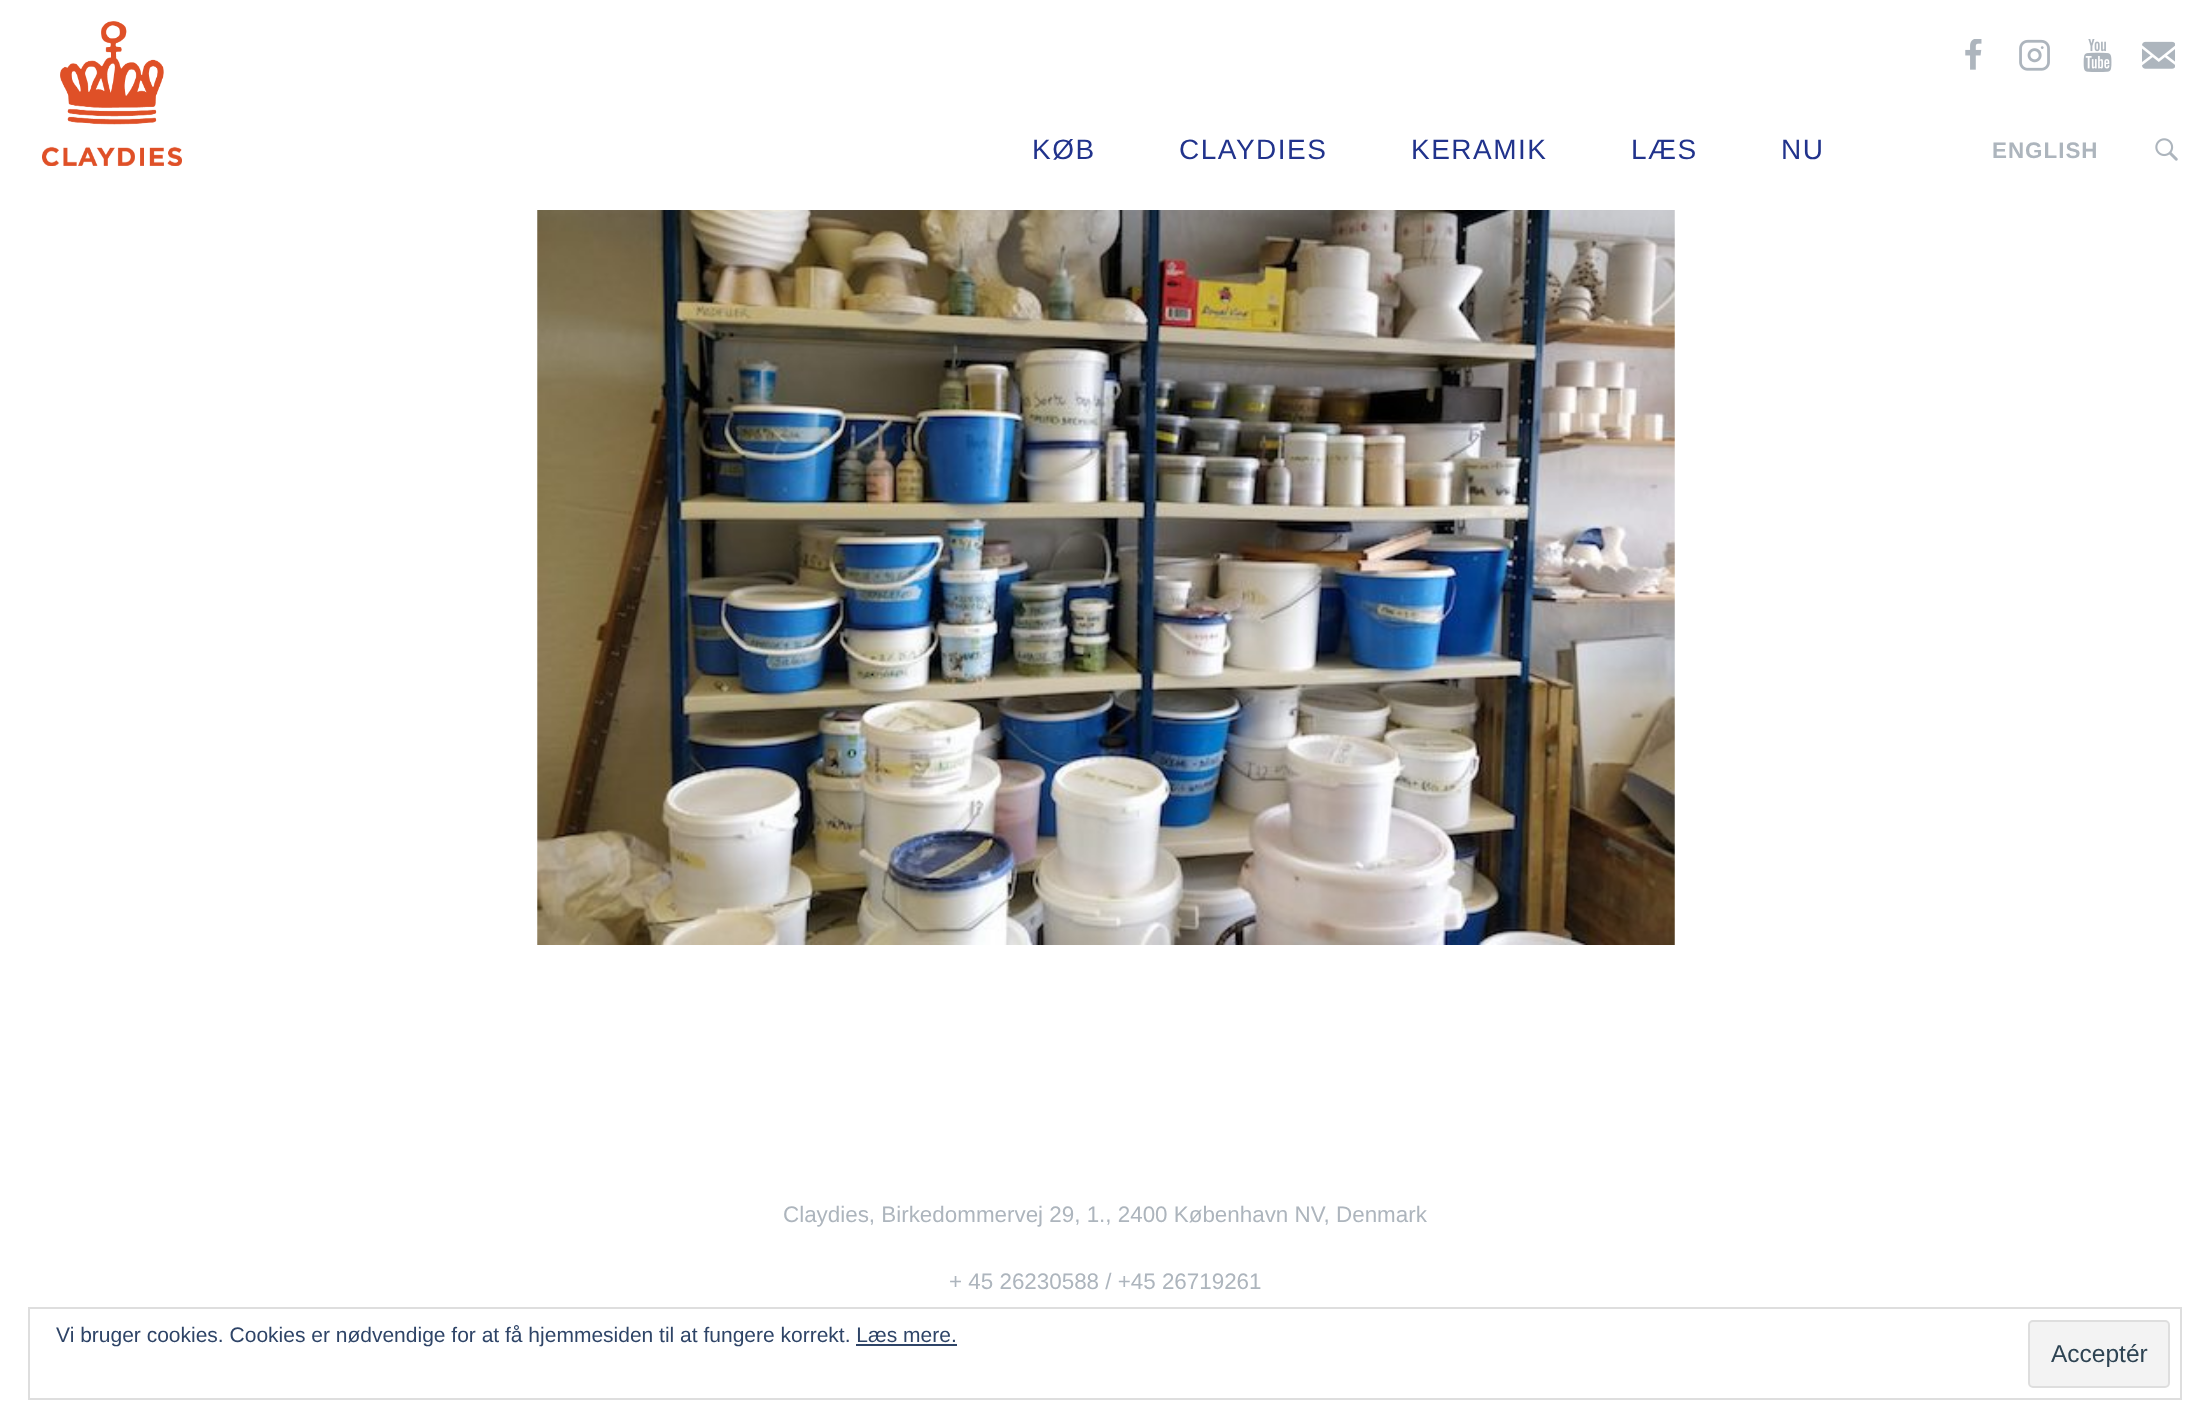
<!DOCTYPE html>
<meta charset="utf-8">
<style>body { margin: 0 } canvas { display: block }</style>
<canvas id="canvas" width="2210" height="1427"></canvas>
<script type="module">
  const canvas = document.getElementById("canvas");
  const ctx = canvas.getContext("2d");
  ctx.miterLimit = 4;
  ctx.fontKerning = "normal";
  async function loadImage(src) {
    const img = new Image();
    img.src = src;
    await img.decode();
    return img;
  }

  ctx.fillStyle = "#ffffff";
  ctx.fillRect(0, 0, 2210, 1427);
  ctx.drawImage(await loadImage("img1.png"), 42, 21, 140, 145);
  ctx.drawImage(await loadImage("img2.png"), 1965, 39, 17, 31);
  ctx.drawImage(await loadImage("img3.png"), 2019, 39, 31, 32);
  ctx.drawImage(await loadImage("img4.png"), 2083, 39, 29, 33);
  ctx.drawImage(await loadImage("img5.png"), 2142, 41, 33, 28);
  ctx.letterSpacing = "1.5px";
  ctx.font = "28px Liberation Sans";
  ctx.fillStyle = "#21338c";
  ctx.fillText("KØB", 1032, 159);
  ctx.fillText("CLAYDIES", 1179, 159);
  ctx.fillText("KERAMIK", 1411, 159);
  ctx.fillText("LÆS", 1631, 159);
  ctx.fillText("NU", 1781, 159);
  ctx.letterSpacing = "1px";
  ctx.font = "bold 22.4px Liberation Sans";
  ctx.fillStyle = "#adb5bd";
  ctx.fillText("ENGLISH", 1992, 158);
  ctx.drawImage(await loadImage("img6.png"), 2155, 138, 23, 23);
  ctx.drawImage(await loadImage("img7.png"), 537, 210, 1138, 735);
  ctx.letterSpacing = "0px";
  ctx.font = "22.4px Liberation Sans";
  ctx.fillText("Claydies, Birkedommervej 29, 1., 2400 København NV, Denmark", 783, 1222);
  ctx.fillText("+ 45 26230588 / +45 26719261", 949, 1289);
  ctx.strokeStyle = "#dedede";
  ctx.lineWidth = 2;
  ctx.strokeRect(29, 1308, 2152, 91);
  ctx.font = "21px Liberation Sans";
  ctx.fillStyle = "#2e4467";
  ctx.fillText("Vi bruger cookies. Cookies er nødvendige for at få hjemmesiden til at fungere korrekt. Læs mere.", 56, 1342);
  ctx.fillRect(856, 1344, 101, 2);
  ctx.fillStyle = "#f3f3f3";
  ctx.beginPath();
  ctx.roundRect(2029, 1321, 140, 66, 4);
  ctx.fill();
  ctx.stroke();
  ctx.font = "24.5px Liberation Sans";
  ctx.fillStyle = "#2e4453";
  ctx.fillText("Acceptér", 2051, 1362);
</script>
